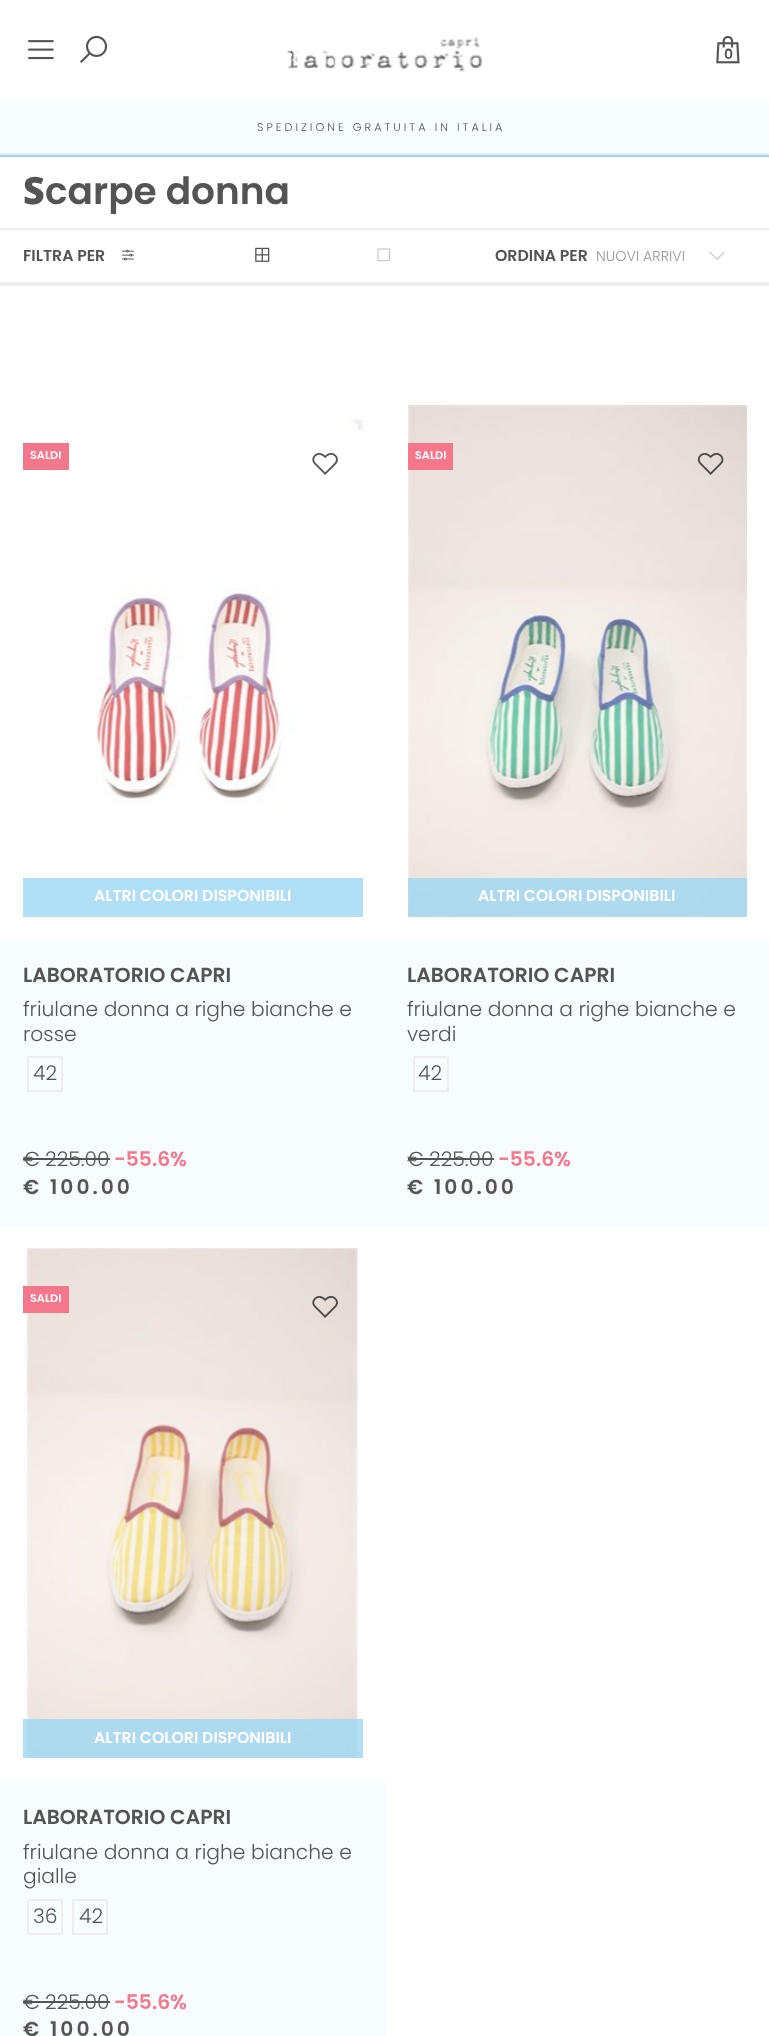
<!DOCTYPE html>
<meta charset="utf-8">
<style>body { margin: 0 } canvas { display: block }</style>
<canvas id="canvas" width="769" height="2036"></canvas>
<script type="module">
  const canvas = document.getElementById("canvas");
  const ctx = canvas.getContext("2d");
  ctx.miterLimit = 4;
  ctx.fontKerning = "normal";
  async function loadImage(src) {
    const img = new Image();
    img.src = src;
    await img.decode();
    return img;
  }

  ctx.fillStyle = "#ffffff";
  ctx.fillRect(0, 0, 769, 2036);
  ctx.fillStyle = "#9ed7f2";
  ctx.fillRect(0, 155, 769, 2);
  ctx.drawImage(await loadImage("img1.png"), 28, 40, 26, 20);
  ctx.drawImage(await loadImage("img2.png"), 80, 35, 28, 28);
  ctx.drawImage(await loadImage("img3.png"), 287, 37, 196, 35);
  ctx.drawImage(await loadImage("img4.png"), 716, 35, 24, 29);
  ctx.font = "600 14px Poppins";
  ctx.fillStyle = "#545454";
  ctx.fillText("0", 724, 59);
  ctx.fillStyle = "#f7fcfe";
  ctx.fillRect(0, 101, 769, 52);
  ctx.fillStyle = "#eeeeee";
  ctx.fillRect(0, 153, 769, 2);
  ctx.letterSpacing = "3px";
  ctx.font = "300 11.25px Poppins";
  ctx.fillStyle = "#545454";
  ctx.fillText("SPEDIZIONE GRATUITA IN ITALIA", 257, 131);
  ctx.fillStyle = "#eeeeee";
  ctx.fillRect(0, 228, 769, 2);
  ctx.letterSpacing = "0px";
  ctx.font = "900 37.5px Noto Sans";
  ctx.fillStyle = "#545454";
  ctx.fillText("S", 23, 204);
  ctx.font = "600 37.5px Poppins";
  ctx.fillText("carpe donna", 45, 204);
  ctx.fillStyle = "#eeeeee";
  ctx.fillRect(0, 282, 769, 4);
  ctx.font = "600 15.75px Poppins";
  ctx.fillStyle = "#545454";
  ctx.fillText("FILTRA PER", 23, 261);
  ctx.drawImage(await loadImage("img5.png"), 122, 249, 12, 12);
  ctx.drawImage(await loadImage("img6.png"), 255, 247, 15, 15);
  ctx.drawImage(await loadImage("img7.png"), 377, 248, 14, 14);
  ctx.fillText("ORDINA PER", 495, 261);
  ctx.drawImage(await loadImage("img8.png"), 709, 252, 16, 8);
  ctx.font = "300 14.25px Poppins";
  ctx.fillStyle = "#989898";
  ctx.fillText("NUOVI ARRIVI", 596, 261);
  ctx.fillStyle = "#f5778c";
  ctx.fillRect(23, 443, 46, 27);
  ctx.font = "600 11.25px Poppins";
  ctx.fillStyle = "#ffffff";
  ctx.fillText("SALDI", 30, 459);
  ctx.drawImage(await loadImage("img10.png"), 94, 416, 269, 389);
  ctx.drawImage(await loadImage("img9.png"), 312, 453, 26, 22);
  ctx.fillStyle = "#b1dff5";
  ctx.fillRect(23, 878, 340, 39);
  ctx.font = "600 15.75px Poppins";
  ctx.fillStyle = "#ffffff";
  ctx.fillText("ALTRI COLORI DISPONIBILI", 94, 901);
  ctx.fillStyle = "#f7fcfe";
  ctx.fillRect(0, 939, 769, 287);
  ctx.font = "600 20.25px Poppins";
  ctx.fillStyle = "#545454";
  ctx.fillText("LABORATORIO CAPRI", 23, 982);
  ctx.font = "300 20.25px Poppins";
  ctx.fillText("friulane donna a righe bianche e", 23, 1016);
  ctx.fillText("rosse", 23, 1041);
  ctx.strokeStyle = "#eeeeee";
  ctx.lineWidth = 2;
  ctx.strokeRect(28, 1057, 34, 34);
  ctx.fillText("42", 33, 1080);
  ctx.fillText("€ 225.00", 23, 1166);
  ctx.fillRect(23, 1158, 87, 2);
  ctx.font = "600 20.25px Poppins";
  ctx.fillStyle = "#f5778c";
  ctx.fillText("-55.6%", 114, 1166);
  ctx.letterSpacing = "3px";
  ctx.fillStyle = "#545454";
  ctx.fillText("€ 100.00", 23, 1194);
  ctx.drawImage(await loadImage("img12.png"), 408, 405, 339, 512);
  ctx.fillStyle = "#f5778c";
  ctx.fillRect(408, 443, 45, 27);
  ctx.letterSpacing = "0px";
  ctx.font = "600 11.25px Poppins";
  ctx.fillStyle = "#ffffff";
  ctx.fillText("SALDI", 415, 459);
  ctx.drawImage(await loadImage("img11.png"), 697, 453, 27, 22);
  ctx.fillStyle = "rgba(158, 215, 242, 0.8)";
  ctx.fillRect(408, 878, 339, 39);
  ctx.font = "600 15.75px Poppins";
  ctx.fillStyle = "#ffffff";
  ctx.fillText("ALTRI COLORI DISPONIBILI", 478, 901);
  ctx.font = "600 20.25px Poppins";
  ctx.fillStyle = "#545454";
  ctx.fillText("LABORATORIO CAPRI", 407, 982);
  ctx.font = "300 20.25px Poppins";
  ctx.fillText("friulane donna a righe bianche e", 407, 1016);
  ctx.fillText("verdi", 407, 1041);
  ctx.strokeRect(414, 1057, 34, 34);
  ctx.fillText("42", 418, 1080);
  ctx.fillText("€ 225.00", 407, 1166);
  ctx.fillRect(408, 1158, 86, 2);
  ctx.font = "600 20.25px Poppins";
  ctx.fillStyle = "#f5778c";
  ctx.fillText("-55.6%", 498, 1166);
  ctx.letterSpacing = "3px";
  ctx.fillStyle = "#545454";
  ctx.fillText("€ 100.00", 407, 1194);
  ctx.drawImage(await loadImage("img14.png"), 23, 1248, 337, 510);
  ctx.fillStyle = "#f5778c";
  ctx.fillRect(23, 1286, 46, 27);
  ctx.letterSpacing = "0px";
  ctx.font = "600 11.25px Poppins";
  ctx.fillStyle = "#ffffff";
  ctx.fillText("SALDI", 30, 1302);
  ctx.drawImage(await loadImage("img13.png"), 312, 1296, 26, 22);
  ctx.fillStyle = "rgba(158, 215, 242, 0.8)";
  ctx.fillRect(23, 1719, 340, 39);
  ctx.font = "600 15.75px Poppins";
  ctx.fillStyle = "#ffffff";
  ctx.fillText("ALTRI COLORI DISPONIBILI", 94, 1743);
  ctx.fillStyle = "#f7fcfe";
  ctx.fillRect(0, 1781, 386, 255);
  ctx.font = "600 20.25px Poppins";
  ctx.fillStyle = "#545454";
  ctx.fillText("LABORATORIO CAPRI", 23, 1824);
  ctx.font = "300 20.25px Poppins";
  ctx.fillText("friulane donna a righe bianche e", 23, 1859);
  ctx.fillText("gialle", 23, 1883);
  ctx.strokeRect(28, 1900, 34, 34);
  ctx.fillText("36", 33, 1923);
  ctx.strokeRect(73, 1900, 34, 34);
  ctx.fillText("42", 79, 1923);
  ctx.fillText("€ 225.00", 23, 2009);
  ctx.fillRect(23, 2001, 87, 2);
  ctx.font = "600 20.25px Poppins";
  ctx.fillStyle = "#f5778c";
  ctx.fillText("-55.6%", 114, 2009);
  ctx.letterSpacing = "3px";
  ctx.fillStyle = "#545454";
  ctx.fillText("€ 100.00", 23, 2036);
</script>
